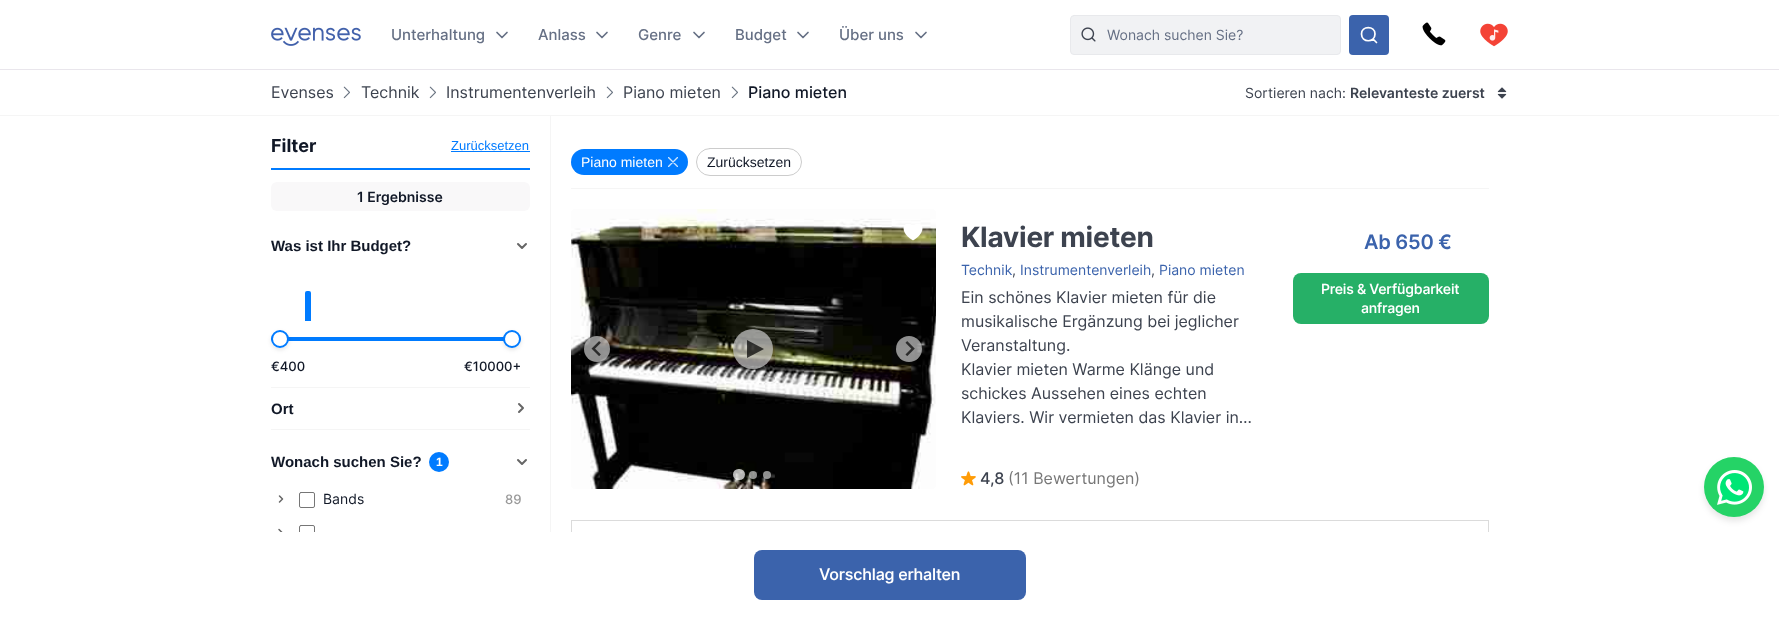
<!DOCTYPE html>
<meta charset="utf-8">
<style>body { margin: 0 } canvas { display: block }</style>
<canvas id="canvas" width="1779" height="617"></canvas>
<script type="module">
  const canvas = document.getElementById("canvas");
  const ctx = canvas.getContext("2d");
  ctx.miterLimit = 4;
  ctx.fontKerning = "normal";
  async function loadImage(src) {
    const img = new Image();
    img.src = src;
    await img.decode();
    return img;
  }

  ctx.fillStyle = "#ffffff";
  ctx.fillRect(0, 0, 1779, 617);
  ctx.fillStyle = "#e9e6ec";
  ctx.fillRect(0, 69, 1779, 1);
  ctx.drawImage(await loadImage("img1.png"), 271, 27, 90, 19);
  ctx.font = "500 15px Inter";
  ctx.fillStyle = "#667085";
  ctx.fillText("Unterhaltung", 391, 40);
  ctx.beginPath();
  ctx.moveTo(497, 32.5);
  ctx.lineTo(502, 37.5);
  ctx.lineTo(507, 32.5);
  ctx.strokeStyle = "#667085";
  ctx.lineWidth = 1.7;
  ctx.lineCap = "round";
  ctx.lineJoin = "round";
  ctx.stroke();
  ctx.fillText("Anlass", 538, 40);
  ctx.beginPath();
  ctx.moveTo(597, 32.5);
  ctx.lineTo(602, 37.5);
  ctx.lineTo(607, 32.5);
  ctx.stroke();
  ctx.fillText("Genre", 638, 40);
  ctx.beginPath();
  ctx.moveTo(694, 32.5);
  ctx.lineTo(699, 37.5);
  ctx.lineTo(704, 32.5);
  ctx.stroke();
  ctx.fillText("Budget", 735, 40);
  ctx.beginPath();
  ctx.moveTo(798, 32.5);
  ctx.lineTo(803, 37.5);
  ctx.lineTo(808, 32.5);
  ctx.stroke();
  ctx.fillText("Über uns", 839, 40);
  ctx.beginPath();
  ctx.moveTo(916, 32.5);
  ctx.lineTo(921, 37.5);
  ctx.lineTo(926, 32.5);
  ctx.stroke();
  ctx.fillStyle = "#f1f2f4";
  ctx.beginPath();
  ctx.roundRect(1070.5, 15.5, 270, 39, 3.5);
  ctx.fill();
  ctx.strokeStyle = "#e8e9ec";
  ctx.lineWidth = 1;
  ctx.lineJoin = "miter";
  ctx.stroke();
  ctx.drawImage(await loadImage("img2.png"), 1081, 27, 15, 15);
  ctx.font = "14px Inter";
  ctx.fillStyle = "#667085";
  ctx.fillText("Wonach suchen Sie?", 1107, 40);
  ctx.fillStyle = "#3b63ac";
  ctx.beginPath();
  ctx.roundRect(1349, 15, 40, 40, 4);
  ctx.fill();
  ctx.beginPath();
  ctx.moveTo(1376.5, 42.5);
  ctx.lineTo(1373, 39);
  ctx.moveTo(1375, 34);
  ctx.bezierCurveTo(1375, 43, 1361.5, 43, 1361.5, 34);
  ctx.bezierCurveTo(1361.5, 25.5, 1375, 25.5, 1375, 34);
  ctx.closePath();
  ctx.strokeStyle = "#ffffff";
  ctx.lineWidth = 1.7;
  ctx.lineJoin = "round";
  ctx.stroke();
  ctx.drawImage(await loadImage("img3.png"), 1422, 22, 24, 24);
  ctx.drawImage(await loadImage("img4.png"), 1480, 23, 28, 24);
  ctx.fillStyle = "#f5f5f5";
  ctx.fillRect(0, 115, 1779, 1);
  ctx.font = "16px Inter";
  ctx.fillStyle = "#3d434f";
  ctx.fillText("Evenses", 271, 98);
  ctx.drawImage(await loadImage("img5.png"), 343, 86, 7, 13);
  ctx.fillText("Technik", 361, 98);
  ctx.drawImage(await loadImage("img5.png"), 429, 86, 7, 13);
  ctx.fillText("Instrumentenverleih", 446, 98);
  ctx.drawImage(await loadImage("img5.png"), 606, 86, 7, 13);
  ctx.fillText("Piano mieten", 623, 98);
  ctx.drawImage(await loadImage("img5.png"), 731, 86, 7, 13);
  ctx.font = "500 16px Inter";
  ctx.fillStyle = "#111827";
  ctx.fillText("Piano mieten", 748, 98);
  ctx.font = "14px Inter";
  ctx.fillStyle = "#3d434f";
  ctx.fillText("Sortieren nach:", 1245, 98);
  ctx.font = "600 14px Inter";
  ctx.fillText("Relevanteste zuerst", 1350, 98);
  ctx.drawImage(await loadImage("img6.png"), 1497, 87, 10, 12);
  ctx.fillStyle = "#f5f5f5";
  ctx.fillRect(550, 116, 1, 416);
  ctx.fillStyle = "#007bff";
  ctx.fillRect(271, 168, 259, 2);
  ctx.font = "bold 18px Inter";
  ctx.fillStyle = "#111827";
  ctx.fillText("Filter", 271, 152);
  ctx.font = "13px Liberation Sans";
  ctx.fillStyle = "#007bff";
  ctx.fillText("Zurücksetzen", 451, 150);
  ctx.fillRect(451, 151, 79, 1);
  ctx.fillStyle = "#f9f8f9";
  ctx.beginPath();
  ctx.roundRect(271, 182, 259, 29, 6);
  ctx.fill();
  ctx.font = "600 14px Inter";
  ctx.fillStyle = "#111827";
  ctx.fillText("1 Ergebnisse", 357, 202);
  ctx.fillStyle = "#f5f5f5";
  ctx.fillRect(271, 387, 259, 1);
  ctx.font = "bold 15px Liberation Sans";
  ctx.fillStyle = "#111827";
  ctx.fillText("Was ist Ihr Budget?", 271, 251);
  ctx.beginPath();
  ctx.moveTo(518, 244);
  ctx.lineTo(522, 248);
  ctx.lineTo(526, 244);
  ctx.strokeStyle = "#666666";
  ctx.lineWidth = 2;
  ctx.stroke();
  ctx.fillStyle = "#007bff";
  ctx.beginPath();
  ctx.roundRect(305, 291, 6, 30, [2, 2, 0, 0]);
  ctx.fill();
  ctx.beginPath();
  ctx.roundRect(271, 337, 250, 4, 2);
  ctx.fill();
  ctx.save();
  ctx.beginPath();
  ctx.moveTo(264, 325);
  ctx.lineTo(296, 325);
  ctx.lineTo(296, 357);
  ctx.lineTo(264, 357);
  ctx.closePath();
  ctx.moveTo(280, 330);
  ctx.bezierCurveTo(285, 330, 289, 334, 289, 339);
  ctx.bezierCurveTo(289, 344, 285, 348, 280, 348);
  ctx.bezierCurveTo(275, 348, 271, 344, 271, 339);
  ctx.bezierCurveTo(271, 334, 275, 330, 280, 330);
  ctx.closePath();
  ctx.clip("evenodd");
  ctx.fillStyle = "rgba(0, 0, 0, 0.1)";
  ctx.filter = "blur(2px)";
  ctx.beginPath();
  ctx.roundRect(271, 332, 18, 18, 9);
  ctx.fill();
  ctx.filter = "none";
  ctx.restore();
  ctx.fillStyle = "#ffffff";
  ctx.beginPath();
  ctx.arc(280, 339, 8, 0, Math.PI * 2);
  ctx.fill();
  ctx.strokeStyle = "#007bff";
  ctx.stroke();
  ctx.fillStyle = "rgba(0, 0, 0, 0.1)";
  ctx.filter = "blur(2px)";
  ctx.beginPath();
  ctx.roundRect(503, 332, 18, 18, 9);
  ctx.fill();
  ctx.filter = "none";
  ctx.fillStyle = "#ffffff";
  ctx.beginPath();
  ctx.arc(512, 339, 8, 0, Math.PI * 2);
  ctx.fill();
  ctx.stroke();
  ctx.font = "500 13px Inter";
  ctx.fillStyle = "#111827";
  ctx.fillText("€400", 271, 371);
  ctx.fillText("€10000+", 464, 371);
  ctx.fillStyle = "#f5f5f5";
  ctx.fillRect(271, 429, 259, 1);
  ctx.font = "bold 15px Liberation Sans";
  ctx.fillStyle = "#111827";
  ctx.fillText("Ort", 271, 414);
  ctx.beginPath();
  ctx.moveTo(519, 412);
  ctx.lineTo(523, 408);
  ctx.lineTo(519, 404);
  ctx.moveTo(518, 460);
  ctx.lineTo(522, 464);
  ctx.lineTo(526, 460);
  ctx.strokeStyle = "#666666";
  ctx.stroke();
  ctx.fillText("Wonach suchen Sie?", 271, 467);
  ctx.fillStyle = "#007bff";
  ctx.beginPath();
  ctx.arc(439, 462, 10, 0, Math.PI * 2);
  ctx.fill();
  ctx.font = "bold 12px Liberation Sans";
  ctx.fillStyle = "#ffffff";
  ctx.fillText("1", 436, 466);
  ctx.beginPath();
  ctx.moveTo(279.5, 502);
  ctx.lineTo(282.5, 499);
  ctx.lineTo(279.5, 496);
  ctx.moveTo(279, 535.5);
  ctx.lineTo(282, 532.5);
  ctx.lineTo(279, 529.5);
  ctx.lineWidth = 1.5;
  ctx.stroke();
  ctx.beginPath();
  ctx.roundRect(299.5, 492.5, 15, 15, 1.5);
  ctx.strokeStyle = "#767676";
  ctx.lineWidth = 1;
  ctx.lineJoin = "miter";
  ctx.stroke();
  ctx.font = "14px Inter";
  ctx.fillStyle = "#111827";
  ctx.fillText("Bands", 323, 504);
  ctx.font = "500 13px Inter";
  ctx.fillStyle = "#999999";
  ctx.fillText("89", 505, 504);
  ctx.beginPath();
  ctx.roundRect(299.5, 525.5, 15, 15, 1.5);
  ctx.stroke();
  ctx.fillStyle = "#f5f5f5";
  ctx.fillRect(571, 188, 918, 1);
  ctx.fillStyle = "#007bff";
  ctx.beginPath();
  ctx.roundRect(571, 149, 117, 26, 13);
  ctx.fill();
  ctx.font = "14px Liberation Sans";
  ctx.fillStyle = "#ffffff";
  ctx.fillText("Piano mieten", 581, 167);
  ctx.save();
  ctx.beginPath();
  ctx.rect(668, 157, 10, 10);
  ctx.clip();
  ctx.beginPath();
  ctx.moveTo(677.5, 157.5);
  ctx.lineTo(668.5, 166.5);
  ctx.moveTo(668.5, 157.5);
  ctx.lineTo(677.5, 166.5);
  ctx.strokeStyle = "#cce5ff";
  ctx.lineWidth = 1.4;
  ctx.stroke();
  ctx.restore();
  ctx.beginPath();
  ctx.roundRect(696.5, 148.5, 105, 27, 13.5);
  ctx.strokeStyle = "#cccccc";
  ctx.stroke();
  ctx.fillStyle = "#111827";
  ctx.fillText("Zurücksetzen", 707, 167);
  ctx.drawImage(await loadImage("img7.png"), 571, 209, 365, 280);
  ctx.fillStyle = "rgba(204, 204, 204, 0.7)";
  ctx.beginPath();
  ctx.arc(597, 349, 13, 0, Math.PI * 2);
  ctx.fill();
  ctx.drawImage(await loadImage("img8.png"), 591, 341, 10, 15);
  ctx.beginPath();
  ctx.arc(909, 349, 13, 0, Math.PI * 2);
  ctx.fill();
  ctx.drawImage(await loadImage("img9.png"), 905, 341, 10, 15);
  ctx.fillStyle = "rgba(255, 255, 255, 0.7)";
  ctx.beginPath();
  ctx.roundRect(733, 469, 12, 11, 5.5);
  ctx.fill();
  ctx.fillStyle = "rgba(204, 204, 204, 0.7)";
  ctx.beginPath();
  ctx.arc(753, 475, 4, 0, Math.PI * 2);
  ctx.fill();
  ctx.beginPath();
  ctx.arc(767, 475, 4, 0, Math.PI * 2);
  ctx.fill();
  ctx.beginPath();
  ctx.arc(753, 349, 20, 0, Math.PI * 2);
  ctx.fill();
  ctx.fillStyle = "rgba(0, 0, 0, 0.7)";
  ctx.beginPath();
  ctx.moveTo(747, 358);
  ctx.lineTo(747, 340);
  ctx.lineTo(764, 349);
  ctx.closePath();
  ctx.fill();
  ctx.drawImage(await loadImage("img10.png"), 903, 224, 20, 17);
  ctx.letterSpacing = "-0.25px";
  ctx.font = "bold 28px Inter";
  ctx.fillStyle = "#3d434f";
  ctx.fillText("Klavier mieten", 961, 247);
  ctx.letterSpacing = "0px";
  ctx.font = "14px Inter";
  ctx.fillStyle = "#3b63ac";
  ctx.fillText("Technik", 961, 275);
  ctx.fillStyle = "#3d434f";
  ctx.fillText(",", 1012, 275);
  ctx.fillStyle = "#3b63ac";
  ctx.fillText("Instrumentenverleih", 1020, 275);
  ctx.fillStyle = "#3d434f";
  ctx.fillText(",", 1151, 275);
  ctx.fillStyle = "#3b63ac";
  ctx.fillText("Piano mieten", 1159, 275);
  ctx.font = "16px Inter";
  ctx.fillStyle = "#3d434f";
  ctx.fillText("Ein schönes Klavier mieten für die", 961, 303);
  ctx.fillText("musikalische Ergänzung bei jeglicher", 961, 327);
  ctx.fillText("Veranstaltung.", 961, 351);
  ctx.fillText("Klavier mieten Warme Klänge und", 961, 375);
  ctx.fillText("schickes Aussehen eines echten", 961, 399);
  ctx.fillText("Klaviers. Wir vermieten das Klavier in…", 961, 423);
  ctx.drawImage(await loadImage("img11.png"), 961, 471, 15, 15);
  ctx.font = "500 16px Inter";
  ctx.fillText("4,8", 980, 484);
  ctx.font = "16px Inter";
  ctx.fillStyle = "#777777";
  ctx.fillText("(11 Bewertungen)", 1008, 484);
  ctx.letterSpacing = "-0.25px";
  ctx.font = "600 20px Inter";
  ctx.fillStyle = "#3b63ac";
  ctx.fillText("Ab 650 €", 1364, 249);
  ctx.fillStyle = "#26b067";
  ctx.beginPath();
  ctx.roundRect(1293, 273, 196, 51, 8);
  ctx.fill();
  ctx.letterSpacing = "-0.2px";
  ctx.font = "500 14px 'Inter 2'";
  ctx.fillStyle = "#ffffff";
  ctx.fillText("Preis & Verfügbarkeit", 1321, 294);
  ctx.fillText("anfragen", 1361, 313);
  ctx.strokeStyle = "#dbdbdb";
  ctx.strokeRect(571.5, 520.5, 917, 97);
  ctx.fillRect(278, 532, 1211, 85);
  ctx.fillStyle = "#3b63ac";
  ctx.beginPath();
  ctx.roundRect(754, 550, 272, 50, 8);
  ctx.fill();
  ctx.font = "500 16px 'Inter 2'";
  ctx.fillStyle = "#ffffff";
  ctx.fillText("Vorschlag erhalten", 819, 580);
  ctx.fillStyle = "rgba(0, 0, 0, 0.1)";
  ctx.filter = "blur(3px)";
  ctx.beginPath();
  ctx.roundRect(1704, 461, 60, 60, 30);
  ctx.fill();
  ctx.filter = "none";
  ctx.fillStyle = "#25d366";
  ctx.beginPath();
  ctx.arc(1734, 487, 30, 0, Math.PI * 2);
  ctx.fill();
  ctx.drawImage(await loadImage("img12.png"), 1717, 470, 35, 35);
</script>
